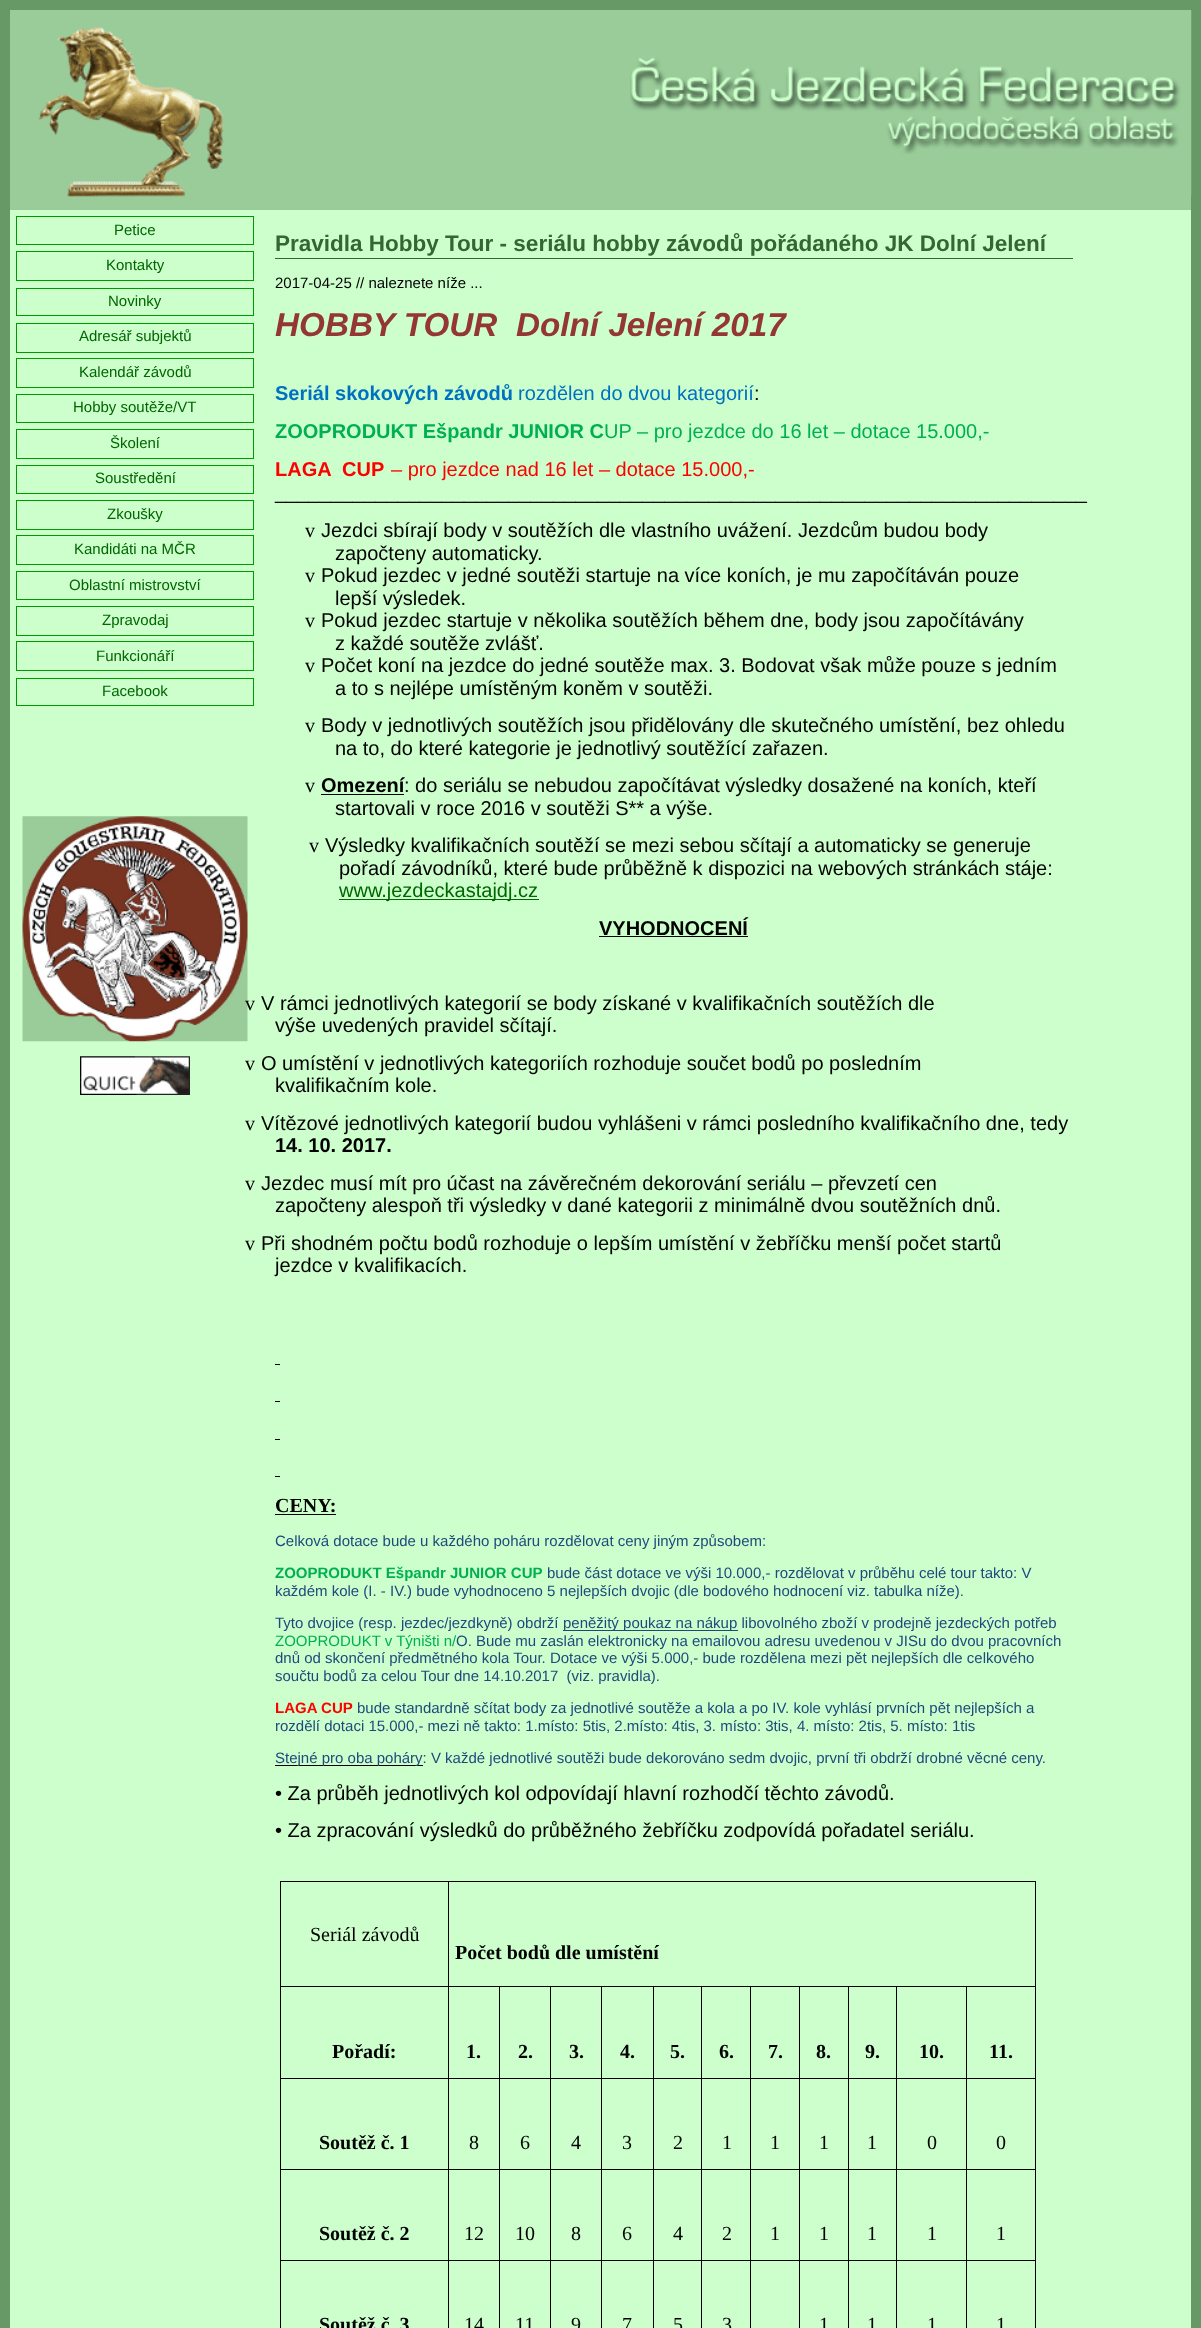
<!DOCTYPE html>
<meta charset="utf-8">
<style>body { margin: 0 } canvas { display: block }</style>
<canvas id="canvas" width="1201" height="2328"></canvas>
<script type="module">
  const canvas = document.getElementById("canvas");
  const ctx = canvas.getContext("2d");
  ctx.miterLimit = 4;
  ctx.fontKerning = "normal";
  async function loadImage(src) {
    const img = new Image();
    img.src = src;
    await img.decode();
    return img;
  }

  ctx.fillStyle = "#669966";
  ctx.fillRect(0, 0, 1201, 2328);
  ctx.fillStyle = "#99cc99";
  ctx.fillRect(10, 10, 1181, 200);
  ctx.drawImage(await loadImage("img1.png"), 38, 27, 186, 170);
  ctx.drawImage(await loadImage("img2.png"), 630, 10, 562, 186);
  ctx.fillStyle = "#ccffcc";
  ctx.fillRect(10, 210, 1181, 2118);
  ctx.strokeStyle = "#009900";
  ctx.strokeRect(16.5, 216.5, 237, 28);
  ctx.font = "15px Liberation Sans";
  ctx.fillStyle = "#006600";
  ctx.fillText("Petice", 114, 235);
  ctx.strokeRect(16.5, 251.5, 237, 29);
  ctx.fillText("Kontakty", 106, 270);
  ctx.strokeRect(16.5, 288.5, 237, 27);
  ctx.fillText("Novinky", 108, 306);
  ctx.strokeRect(16.5, 323.5, 237, 29);
  ctx.fillText("Adresář subjektů", 79, 341);
  ctx.strokeRect(16.5, 358.5, 237, 29);
  ctx.fillText("Kalendář závodů", 79, 377);
  ctx.strokeRect(16.5, 394.5, 237, 28);
  ctx.fillText("Hobby soutěže/VT", 73, 412);
  ctx.strokeRect(16.5, 429.5, 237, 29);
  ctx.fillText("Školení", 110, 448);
  ctx.strokeRect(16.5, 465.5, 237, 28);
  ctx.fillText("Soustředění", 95, 483);
  ctx.strokeRect(16.5, 500.5, 237, 29);
  ctx.fillText("Zkoušky", 107, 519);
  ctx.strokeRect(16.5, 535.5, 237, 29);
  ctx.fillText("Kandidáti na MČR", 74, 554);
  ctx.strokeRect(16.5, 571.5, 237, 28);
  ctx.fillText("Oblastní mistrovství", 69, 590);
  ctx.strokeRect(16.5, 606.5, 237, 29);
  ctx.fillText("Zpravodaj", 102, 625);
  ctx.strokeRect(16.5, 641.5, 237, 29);
  ctx.fillText("Funkcionáří", 96, 661);
  ctx.strokeRect(16.5, 678.5, 237, 27);
  ctx.fillText("Facebook", 102, 696);
  ctx.drawImage(await loadImage("img3.png"), 22, 816, 226, 226);
  ctx.drawImage(await loadImage("img4.png"), 80, 1056, 110, 39);
  ctx.fillStyle = "#336633";
  ctx.fillRect(275, 258, 798, 1);
  ctx.font = "bold 22.5px Liberation Sans";
  ctx.fillText("Pravidla Hobby Tour - seriálu hobby závodů pořádaného JK Dolní Jelení", 275, 251);
  ctx.font = "15px Liberation Sans";
  ctx.fillStyle = "#000000";
  ctx.fillText("2017-04-25 // naleznete níže ...", 275, 288);
  ctx.font = "italic bold 33.25px Liberation Sans";
  ctx.fillStyle = "#943634";
  ctx.fillText("HOBBY TOUR", 275, 336);
  ctx.fillText("Dolní Jelení 2017", 516, 336);
  ctx.font = "bold 20px Liberation Sans";
  ctx.fillStyle = "#0070c0";
  ctx.fillText("Seriál skokových závodů", 275, 400);
  ctx.font = "20px Liberation Sans";
  ctx.fillText("rozdělen do dvou kategorií", 518, 400);
  ctx.fillStyle = "#000000";
  ctx.fillText(":", 754, 400);
  ctx.font = "bold 20px Liberation Sans";
  ctx.fillStyle = "#00b050";
  ctx.fillText("ZOOPRODUKT Ešpandr JUNIOR C", 275, 438);
  ctx.font = "20px Liberation Sans";
  ctx.fillText("UP – pro jezdce do 16 let – dotace 15.000,-", 604, 438);
  ctx.font = "bold 20px Liberation Sans";
  ctx.fillStyle = "#ff0000";
  ctx.fillText("LAGA  CUP", 275, 476);
  ctx.font = "20px Liberation Sans";
  ctx.fillText("– pro jezdce nad 16 let – dotace 15.000,-", 391, 476);
  ctx.fillStyle = "#000000";
  ctx.fillText("_________________________________________________________________________", 275, 499);
  ctx.font = "20px Liberation Serif";
  ctx.fillText("v", 305, 537);
  ctx.font = "20px Liberation Sans";
  ctx.fillText("Jezdci sbírají body v soutěžích dle vlastního uvážení. Jezdcům budou body", 321, 537);
  ctx.fillText("započteny automaticky.", 335, 560);
  ctx.font = "20px Liberation Serif";
  ctx.fillText("v", 305, 582);
  ctx.font = "20px Liberation Sans";
  ctx.fillText("Pokud jezdec v jedné soutěži startuje na více koních, je mu započítáván pouze", 321, 582);
  ctx.fillText("lepší výsledek.", 335, 605);
  ctx.font = "20px Liberation Serif";
  ctx.fillText("v", 305, 627);
  ctx.font = "20px Liberation Sans";
  ctx.fillText("Pokud jezdec startuje v několika soutěžích během dne, body jsou započítávány", 321, 627);
  ctx.fillText("z každé soutěže zvlášť.", 335, 650);
  ctx.font = "20px Liberation Serif";
  ctx.fillText("v", 305, 672);
  ctx.font = "20px Liberation Sans";
  ctx.fillText("Počet koní na jezdce do jedné soutěže max. 3. Bodovat však může pouze s jedním", 321, 672);
  ctx.fillText("a to s nejlépe umístěným koněm v soutěži.", 335, 695);
  ctx.font = "20px Liberation Serif";
  ctx.fillText("v", 305, 732);
  ctx.font = "20px Liberation Sans";
  ctx.fillText("Body v jednotlivých soutěžích jsou přidělovány dle skutečného umístění, bez ohledu", 321, 732);
  ctx.fillText("na to, do které kategorie je jednotlivý soutěžící zařazen.", 335, 755);
  ctx.font = "20px Liberation Serif";
  ctx.fillText("v", 305, 792);
  ctx.font = "bold 20px Liberation Sans";
  ctx.fillText("Omezení", 321, 792);
  ctx.fillRect(321, 794, 83, 1);
  ctx.font = "20px Liberation Sans";
  ctx.fillText(": do seriálu se nebudou započítávat výsledky dosažené na koních, kteří", 404, 792);
  ctx.fillText("startovali v roce 2016 v soutěži S** a výše.", 335, 815);
  ctx.font = "20px Liberation Serif";
  ctx.fillText("v", 309, 852);
  ctx.font = "20px Liberation Sans";
  ctx.fillText("Výsledky kvalifikačních soutěží se mezi sebou sčítají a automaticky se generuje", 325, 852);
  ctx.fillText("pořadí závodníků, které bude průběžně k dispozici na webových stránkách stáje:", 339, 875);
  ctx.fillStyle = "#006600";
  ctx.fillRect(339, 899, 200, 1);
  ctx.fillText("www.jezdeckastajdj.cz", 339, 897);
  ctx.font = "bold 20px Liberation Sans";
  ctx.fillStyle = "#000000";
  ctx.fillText("VYHODNOCENÍ", 599, 935);
  ctx.fillRect(599, 936, 149, 1);
  ctx.font = "20px Liberation Serif";
  ctx.fillText("v", 245, 1010);
  ctx.font = "20px Liberation Sans";
  ctx.fillText("V rámci jednotlivých kategorií se body získané v kvalifikačních soutěžích dle", 261, 1010);
  ctx.fillText("výše uvedených pravidel sčítají.", 275, 1032);
  ctx.font = "20px Liberation Serif";
  ctx.fillText("v", 245, 1070);
  ctx.font = "20px Liberation Sans";
  ctx.fillText("O umístění v jednotlivých kategoriích rozhoduje součet bodů po posledním", 261, 1070);
  ctx.fillText("kvalifikačním kole.", 275, 1092);
  ctx.font = "20px Liberation Serif";
  ctx.fillText("v", 245, 1130);
  ctx.font = "20px Liberation Sans";
  ctx.fillText("Vítězové jednotlivých kategorií budou vyhlášeni v rámci posledního kvalifikačního dne, tedy", 261, 1130);
  ctx.font = "bold 20px Liberation Sans";
  ctx.fillText("14. 10. 2017.", 275, 1152);
  ctx.font = "20px Liberation Serif";
  ctx.fillText("v", 245, 1190);
  ctx.font = "20px Liberation Sans";
  ctx.fillText("Jezdec musí mít pro účast na závěrečném dekorování seriálu – převzetí cen", 261, 1190);
  ctx.fillText("započteny alespoň tři výsledky v dané kategorii z minimálně dvou soutěžních dnů.", 275, 1212);
  ctx.font = "20px Liberation Serif";
  ctx.fillText("v", 245, 1250);
  ctx.font = "20px Liberation Sans";
  ctx.fillText("Při shodném počtu bodů rozhoduje o lepším umístění v žebříčku menší počet startů", 261, 1250);
  ctx.fillText("jezdce v kvalifikacích.", 275, 1272);
  ctx.fillRect(275, 1364, 5, 1);
  ctx.fillRect(275, 1401, 5, 1);
  ctx.fillRect(275, 1439, 5, 1);
  ctx.fillRect(275, 1476, 5, 1);
  ctx.font = "bold 20px Liberation Serif";
  ctx.fillText("CENY:", 275, 1512);
  ctx.fillRect(275, 1514, 61, 1);
  ctx.font = "15px Liberation Sans";
  ctx.fillStyle = "#1f497d";
  ctx.fillText("Celková dotace bude u každého poháru rozdělovat ceny jiným způsobem:", 275, 1546);
  ctx.font = "bold 15px Liberation Sans";
  ctx.fillStyle = "#00b050";
  ctx.fillText("ZOOPRODUKT Ešpandr JUNIOR CUP", 275, 1578);
  ctx.font = "15px Liberation Sans";
  ctx.fillStyle = "#1f497d";
  ctx.fillText("bude část dotace ve výši 10.000,- rozdělovat v průběhu celé tour takto: V", 547, 1578);
  ctx.fillText("každém kole (I. - IV.) bude vyhodnoceno 5 nejlepších dvojic (dle bodového hodnocení viz. tabulka níže).", 275, 1596);
  ctx.fillText("Tyto dvojice (resp. jezdec/jezdkyně) obdrží", 275, 1628);
  ctx.fillRect(563, 1630, 175, 1);
  ctx.fillText("peněžitý poukaz na nákup libovolného zboží v prodejně jezdeckých potřeb", 563, 1628);
  ctx.fillStyle = "#00b050";
  ctx.fillText("ZOOPRODUKT v Týništi n/", 275, 1646);
  ctx.fillStyle = "#1f497d";
  ctx.fillText("O. Bude mu zaslán elektronicky na emailovou adresu uvedenou v JISu do dvou pracovních", 456, 1646);
  ctx.fillText("dnů od skončení předmětného kola Tour. Dotace ve výši 5.000,- bude rozdělena mezi pět nejlepších dle celkového", 275, 1663);
  ctx.fillText("součtu bodů za celou Tour dne 14.10.2017  (viz. pravidla).", 275, 1681);
  ctx.font = "bold 15px Liberation Sans";
  ctx.fillStyle = "#ff0000";
  ctx.fillText("LAGA CUP", 275, 1713);
  ctx.font = "15px Liberation Sans";
  ctx.fillStyle = "#1f497d";
  ctx.fillText("bude standardně sčítat body za jednotlivé soutěže a kola a po IV. kole vyhlásí prvních pět nejlepších a", 357, 1713);
  ctx.fillText("rozdělí dotaci 15.000,- mezi ně takto: 1.místo: 5tis, 2.místo: 4tis, 3. místo: 3tis, 4. místo: 2tis, 5. místo: 1tis", 275, 1731);
  ctx.fillStyle = "#000000";
  ctx.fillRect(275, 1765, 148, 1);
  ctx.fillStyle = "#1f497d";
  ctx.fillText("Stejné pro oba poháry: V každé jednotlivé soutěži bude dekorováno sedm dvojic, první tři obdrží drobné věcné ceny.", 275, 1763);
  ctx.font = "20px Liberation Sans";
  ctx.fillStyle = "#000000";
  ctx.fillText("• Za průběh jednotlivých kol odpovídají hlavní rozhodčí těchto závodů.", 275, 1800);
  ctx.fillText("• Za zpracování výsledků do průběžného žebříčku zodpovídá pořadatel seriálu.", 275, 1837);
  ctx.fillRect(280, 1881, 756, 1);
  ctx.fillRect(1035, 1986, 1, 342);
  ctx.fillRect(1035, 1881, 1, 107);
  ctx.fillRect(966, 2260, 1, 68);
  ctx.fillRect(966, 2260, 70, 1);
  ctx.fillRect(966, 2169, 1, 92);
  ctx.fillRect(966, 2169, 70, 1);
  ctx.fillRect(966, 2078, 1, 92);
  ctx.fillRect(966, 2078, 70, 1);
  ctx.fillRect(966, 1986, 1, 93);
  ctx.fillRect(896, 2260, 1, 68);
  ctx.fillRect(896, 2260, 72, 1);
  ctx.fillRect(896, 2169, 1, 92);
  ctx.fillRect(896, 2169, 72, 1);
  ctx.fillRect(896, 2078, 1, 92);
  ctx.fillRect(896, 2078, 72, 1);
  ctx.fillRect(896, 1986, 1, 93);
  ctx.fillRect(848, 2260, 1, 68);
  ctx.fillRect(848, 2260, 50, 1);
  ctx.fillRect(848, 2169, 1, 92);
  ctx.fillRect(848, 2169, 50, 1);
  ctx.fillRect(848, 2078, 1, 92);
  ctx.fillRect(848, 2078, 50, 1);
  ctx.fillRect(848, 1986, 1, 93);
  ctx.fillRect(799, 2260, 1, 68);
  ctx.fillRect(799, 2260, 50, 1);
  ctx.fillRect(799, 2169, 1, 92);
  ctx.fillRect(799, 2169, 50, 1);
  ctx.fillRect(799, 2078, 1, 92);
  ctx.fillRect(799, 2078, 50, 1);
  ctx.fillRect(799, 1986, 1, 93);
  ctx.fillRect(750, 2260, 1, 68);
  ctx.fillRect(750, 2260, 50, 1);
  ctx.fillRect(750, 2169, 1, 92);
  ctx.fillRect(750, 2169, 50, 1);
  ctx.fillRect(750, 2078, 1, 92);
  ctx.fillRect(750, 2078, 50, 1);
  ctx.fillRect(750, 1986, 1, 93);
  ctx.fillRect(701, 2260, 1, 68);
  ctx.fillRect(701, 2260, 50, 1);
  ctx.fillRect(701, 2169, 1, 92);
  ctx.fillRect(701, 2169, 50, 1);
  ctx.fillRect(701, 2078, 1, 92);
  ctx.fillRect(701, 2078, 50, 1);
  ctx.fillRect(701, 1986, 1, 93);
  ctx.fillRect(653, 2260, 1, 68);
  ctx.fillRect(653, 2260, 50, 1);
  ctx.fillRect(653, 2169, 1, 92);
  ctx.fillRect(653, 2169, 50, 1);
  ctx.fillRect(653, 2078, 1, 92);
  ctx.fillRect(653, 2078, 50, 1);
  ctx.fillRect(653, 1986, 1, 93);
  ctx.fillRect(601, 2260, 1, 68);
  ctx.fillRect(601, 2260, 53, 1);
  ctx.fillRect(601, 2169, 1, 92);
  ctx.fillRect(601, 2169, 53, 1);
  ctx.fillRect(601, 2078, 1, 92);
  ctx.fillRect(601, 2078, 53, 1);
  ctx.fillRect(601, 1986, 1, 93);
  ctx.fillRect(550, 2260, 1, 68);
  ctx.fillRect(550, 2260, 53, 1);
  ctx.fillRect(550, 2169, 1, 92);
  ctx.fillRect(550, 2169, 53, 1);
  ctx.fillRect(550, 2078, 1, 92);
  ctx.fillRect(550, 2078, 53, 1);
  ctx.fillRect(550, 1986, 1, 93);
  ctx.fillRect(499, 2260, 1, 68);
  ctx.fillRect(499, 2260, 52, 1);
  ctx.fillRect(499, 2169, 1, 92);
  ctx.fillRect(499, 2169, 52, 1);
  ctx.fillRect(499, 2078, 1, 92);
  ctx.fillRect(499, 2078, 52, 1);
  ctx.fillRect(499, 1986, 1, 93);
  ctx.fillRect(448, 2260, 1, 68);
  ctx.fillRect(448, 2260, 52, 1);
  ctx.fillRect(448, 2169, 1, 92);
  ctx.fillRect(448, 2169, 52, 1);
  ctx.fillRect(448, 2078, 1, 92);
  ctx.fillRect(448, 2078, 52, 1);
  ctx.fillRect(448, 1986, 1, 93);
  ctx.fillRect(448, 1986, 588, 1);
  ctx.fillRect(448, 1881, 1, 107);
  ctx.fillRect(280, 2260, 1, 68);
  ctx.fillRect(280, 2260, 169, 1);
  ctx.fillRect(280, 2169, 1, 92);
  ctx.fillRect(280, 2169, 169, 1);
  ctx.fillRect(280, 2078, 1, 92);
  ctx.fillRect(280, 2078, 169, 1);
  ctx.fillRect(280, 1986, 1, 93);
  ctx.fillRect(280, 1986, 169, 1);
  ctx.fillRect(280, 1881, 1, 107);
  ctx.font = "20px Liberation Serif";
  ctx.fillText("Seriál závodů", 310, 1941);
  ctx.font = "bold 20px Liberation Serif";
  ctx.fillText("Počet bodů dle umístění", 455, 1959);
  ctx.fillText("Pořadí:", 332, 2058);
  ctx.fillText("1.", 466, 2058);
  ctx.fillText("2.", 518, 2058);
  ctx.fillText("3.", 569, 2058);
  ctx.fillText("4.", 620, 2058);
  ctx.fillText("5.", 670, 2058);
  ctx.fillText("6.", 719, 2058);
  ctx.fillText("7.", 768, 2058);
  ctx.fillText("8.", 816, 2058);
  ctx.fillText("9.", 865, 2058);
  ctx.fillText("10.", 919, 2058);
  ctx.fillText("11.", 989, 2058);
  ctx.fillText("Soutěž č. 1", 319, 2149);
  ctx.font = "20px Liberation Serif";
  ctx.fillText("8", 469, 2149);
  ctx.fillText("6", 520, 2149);
  ctx.fillText("4", 571, 2149);
  ctx.fillText("3", 622, 2149);
  ctx.fillText("2", 673, 2149);
  ctx.fillText("1", 722, 2149);
  ctx.fillText("1", 770, 2149);
  ctx.fillText("1", 819, 2149);
  ctx.fillText("1", 867, 2149);
  ctx.fillText("0", 927, 2149);
  ctx.fillText("0", 996, 2149);
  ctx.font = "bold 20px Liberation Serif";
  ctx.fillText("Soutěž č. 2", 319, 2240);
  ctx.font = "20px Liberation Serif";
  ctx.fillText("12", 464, 2240);
  ctx.fillText("10", 515, 2240);
  ctx.fillText("8", 571, 2240);
  ctx.fillText("6", 622, 2240);
  ctx.fillText("4", 673, 2240);
  ctx.fillText("2", 722, 2240);
  ctx.fillText("1", 770, 2240);
  ctx.fillText("1", 819, 2240);
  ctx.fillText("1", 867, 2240);
  ctx.fillText("1", 927, 2240);
  ctx.fillText("1", 996, 2240);
  ctx.font = "bold 20px Liberation Serif";
  ctx.fillText("Soutěž č. 3", 319, 2331);
  ctx.font = "20px Liberation Serif";
  ctx.fillText("14", 464, 2331);
  ctx.fillText("11", 515, 2331);
  ctx.fillText("9", 571, 2331);
  ctx.fillText("7", 622, 2331);
  ctx.fillText("5", 673, 2331);
  ctx.fillText("3", 722, 2331);
  ctx.fillText("1", 819, 2331);
  ctx.fillText("1", 867, 2331);
  ctx.fillText("1", 927, 2331);
  ctx.fillText("1", 996, 2331);
</script>
